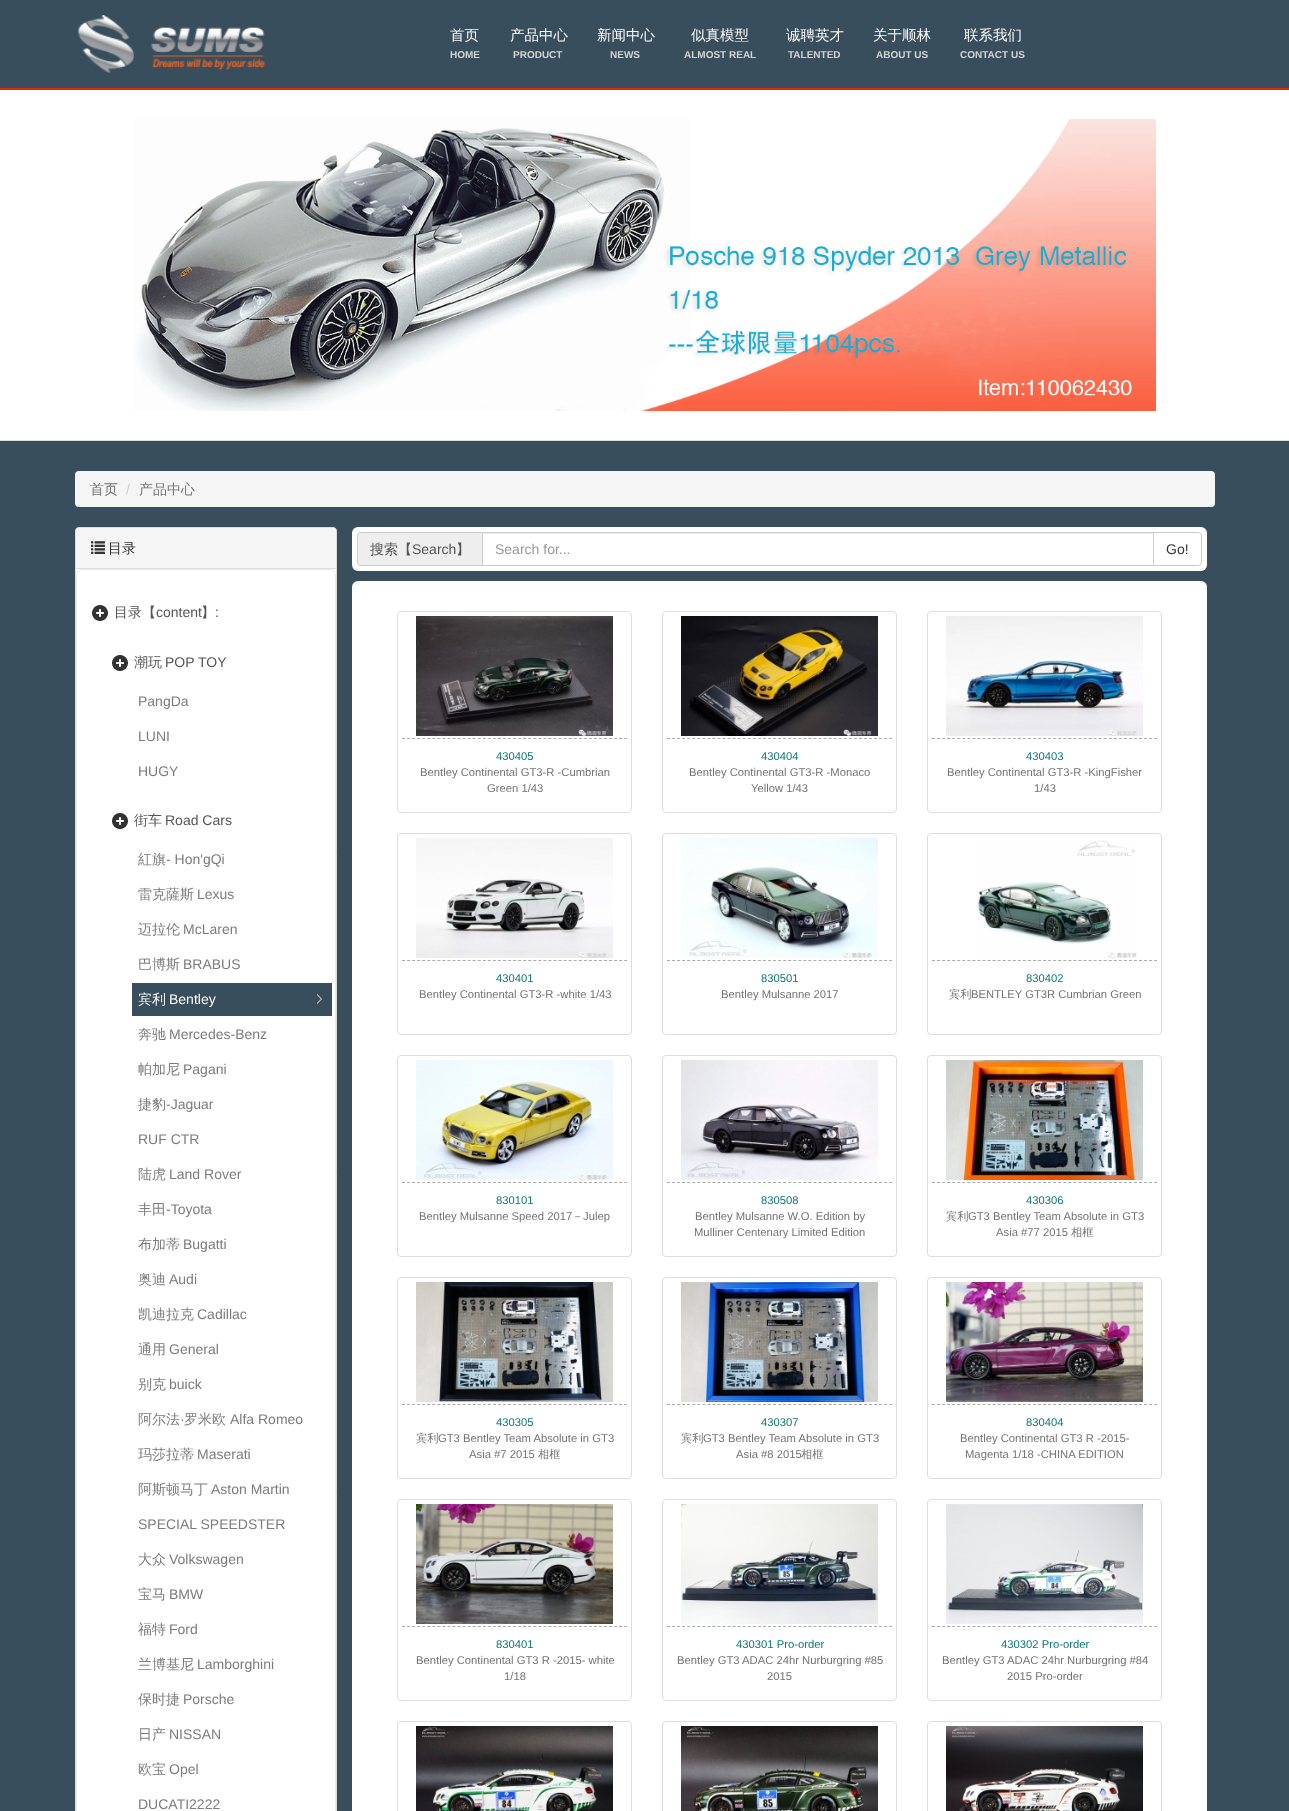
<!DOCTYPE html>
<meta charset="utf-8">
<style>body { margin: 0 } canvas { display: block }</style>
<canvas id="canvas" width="1289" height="1811"></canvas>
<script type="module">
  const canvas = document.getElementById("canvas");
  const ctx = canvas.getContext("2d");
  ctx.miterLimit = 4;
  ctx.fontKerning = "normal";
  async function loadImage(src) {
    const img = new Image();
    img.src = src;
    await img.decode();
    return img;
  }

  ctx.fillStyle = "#384e5d";
  ctx.fillRect(0, 0, 1289, 1811);
  ctx.fillStyle = "#dc2a05";
  ctx.fillRect(0, 88, 1289, 2);
  ctx.drawImage(await loadImage("img1.png"), 77, 15, 188, 58);
  ctx.font = "500 14.5px WenQuanYi Zen Hei";
  ctx.fillStyle = "#fcfcfc";
  ctx.fillText("首页", 450, 40);
  ctx.font = "bold 10px Liberation Sans";
  ctx.fillStyle = "#d3d3d3";
  ctx.fillText("HOME", 450, 58);
  ctx.font = "500 14.5px WenQuanYi Zen Hei";
  ctx.fillStyle = "#fcfcfc";
  ctx.fillText("产品中心", 510, 40);
  ctx.font = "bold 10px Liberation Sans";
  ctx.fillStyle = "#d3d3d3";
  ctx.fillText("PRODUCT", 513, 58);
  ctx.font = "500 14.5px WenQuanYi Zen Hei";
  ctx.fillStyle = "#fcfcfc";
  ctx.fillText("新闻中心", 597, 40);
  ctx.font = "bold 10px Liberation Sans";
  ctx.fillStyle = "#d3d3d3";
  ctx.fillText("NEWS", 610, 58);
  ctx.font = "500 14.5px WenQuanYi Zen Hei";
  ctx.fillStyle = "#fcfcfc";
  ctx.fillText("似真模型", 691, 40);
  ctx.font = "bold 10px Liberation Sans";
  ctx.fillStyle = "#d3d3d3";
  ctx.fillText("ALMOST REAL", 684, 58);
  ctx.font = "500 14.5px WenQuanYi Zen Hei";
  ctx.fillStyle = "#fcfcfc";
  ctx.fillText("诚聘英才", 786, 40);
  ctx.font = "bold 10px Liberation Sans";
  ctx.fillStyle = "#d3d3d3";
  ctx.fillText("TALENTED", 788, 58);
  ctx.font = "500 14.5px WenQuanYi Zen Hei";
  ctx.fillStyle = "#fcfcfc";
  ctx.fillText("关于顺林", 873, 40);
  ctx.font = "bold 10px Liberation Sans";
  ctx.fillStyle = "#d3d3d3";
  ctx.fillText("ABOUT US", 876, 58);
  ctx.font = "500 14.5px WenQuanYi Zen Hei";
  ctx.fillStyle = "#fcfcfc";
  ctx.fillText("联系我们", 964, 40);
  ctx.font = "bold 10px Liberation Sans";
  ctx.fillStyle = "#d3d3d3";
  ctx.fillText("CONTACT US", 960, 58);
  ctx.fillStyle = "#ffffff";
  ctx.fillRect(0, 90, 1289, 350);
  ctx.fillStyle = "#dddddd";
  ctx.fillRect(0, 440, 1289, 1);
  ctx.drawImage(await loadImage("img2.png"), 133, 119, 1023, 292);
  ctx.fillStyle = "#f5f5f5";
  ctx.beginPath();
  ctx.roundRect(75, 471, 1140, 36, 4);
  ctx.fill();
  ctx.font = "500 14px WenQuanYi Zen Hei";
  ctx.fillStyle = "#737373";
  ctx.fillText("首页", 90, 494);
  ctx.font = "14px Liberation Sans";
  ctx.fillStyle = "#cccccc";
  ctx.fillText("/", 126, 494);
  ctx.font = "500 14px WenQuanYi Zen Hei";
  ctx.fillStyle = "#737373";
  ctx.fillText("产品中心", 139, 494);
  ctx.fillStyle = "#ffffff";
  ctx.beginPath();
  ctx.roundRect(75.5, 527.5, 261, 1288, 3.5);
  ctx.fill();
  ctx.strokeStyle = "#dddddd";
  ctx.stroke();
  ctx.fillStyle = "#f5f5f5";
  ctx.beginPath();
  ctx.roundRect(76, 528, 260, 41, [3, 3, 0, 0]);
  ctx.fill();
  ctx.fillStyle = "#dddddd";
  ctx.fillRect(76, 568, 260, 1);
  ctx.drawImage(await loadImage("img3.png"), 91, 541, 14, 13);
  ctx.fillStyle = "#333333";
  ctx.fillText("目录", 108, 553);
  ctx.beginPath();
  ctx.roundRect(76.5, 569.5, 259, 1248, 5.5);
  ctx.strokeStyle = "#eaeaea";
  ctx.stroke();
  ctx.drawImage(await loadImage("img4.png"), 92, 605, 16, 16);
  ctx.fillStyle = "#555555";
  ctx.fillText("目录【", 114, 617);
  ctx.font = "14px Liberation Sans";
  ctx.fillText("content", 156, 617);
  ctx.font = "500 14px WenQuanYi Zen Hei";
  ctx.fillText("】", 201, 617);
  ctx.font = "14px Liberation Sans";
  ctx.fillText(":", 215, 617);
  ctx.drawImage(await loadImage("img4.png"), 112, 655, 16, 16);
  ctx.font = "500 14px WenQuanYi Zen Hei";
  ctx.fillText("潮玩", 134, 667);
  ctx.font = "14px Liberation Sans";
  ctx.fillText("POP TOY", 165, 667);
  ctx.fillStyle = "#7c7c7c";
  ctx.fillText("PangDa", 138, 706);
  ctx.fillText("LUNI", 138, 741);
  ctx.fillText("HUGY", 138, 776);
  ctx.drawImage(await loadImage("img4.png"), 112, 813, 16, 16);
  ctx.font = "500 14px WenQuanYi Zen Hei";
  ctx.fillStyle = "#555555";
  ctx.fillText("街车", 134, 825);
  ctx.font = "14px Liberation Sans";
  ctx.fillText("Road Cars", 165, 825);
  ctx.font = "500 14px WenQuanYi Zen Hei";
  ctx.fillStyle = "#7c7c7c";
  ctx.fillText("紅旗", 138, 864);
  ctx.font = "14px Liberation Sans";
  ctx.fillText("- Hon'gQi", 166, 864);
  ctx.font = "500 14px WenQuanYi Zen Hei";
  ctx.fillText("雷克薩斯", 138, 899);
  ctx.font = "14px Liberation Sans";
  ctx.fillText("Lexus", 197, 899);
  ctx.font = "500 14px WenQuanYi Zen Hei";
  ctx.fillText("迈拉伦", 138, 934);
  ctx.font = "14px Liberation Sans";
  ctx.fillText("McLaren", 183, 934);
  ctx.font = "500 14px WenQuanYi Zen Hei";
  ctx.fillText("巴博斯", 138, 969);
  ctx.font = "14px Liberation Sans";
  ctx.fillText("BRABUS", 183, 969);
  ctx.fillStyle = "#384e5d";
  ctx.fillRect(132, 983, 200, 33);
  ctx.drawImage(await loadImage("img5.png"), 317, 994, 5, 10);
  ctx.font = "500 14px WenQuanYi Zen Hei";
  ctx.fillStyle = "#fcfcfc";
  ctx.fillText("宾利", 138, 1004);
  ctx.font = "14px Liberation Sans";
  ctx.fillText("Bentley", 169, 1004);
  ctx.font = "500 14px WenQuanYi Zen Hei";
  ctx.fillStyle = "#7c7c7c";
  ctx.fillText("奔驰", 138, 1039);
  ctx.font = "14px Liberation Sans";
  ctx.fillText("Mercedes-Benz", 169, 1039);
  ctx.font = "500 14px WenQuanYi Zen Hei";
  ctx.fillText("帕加尼", 138, 1074);
  ctx.font = "14px Liberation Sans";
  ctx.fillText("Pagani", 183, 1074);
  ctx.font = "500 14px WenQuanYi Zen Hei";
  ctx.fillText("捷豹", 138, 1109);
  ctx.font = "14px Liberation Sans";
  ctx.fillText("-Jaguar", 166, 1109);
  ctx.fillText("RUF CTR", 138, 1144);
  ctx.font = "500 14px WenQuanYi Zen Hei";
  ctx.fillText("陆虎", 138, 1179);
  ctx.font = "14px Liberation Sans";
  ctx.fillText("Land Rover", 169, 1179);
  ctx.font = "500 14px WenQuanYi Zen Hei";
  ctx.fillText("丰田", 138, 1214);
  ctx.font = "14px Liberation Sans";
  ctx.fillText("-Toyota", 166, 1214);
  ctx.font = "500 14px WenQuanYi Zen Hei";
  ctx.fillText("布加蒂", 138, 1249);
  ctx.font = "14px Liberation Sans";
  ctx.fillText("Bugatti", 183, 1249);
  ctx.font = "500 14px WenQuanYi Zen Hei";
  ctx.fillText("奥迪", 138, 1284);
  ctx.font = "14px Liberation Sans";
  ctx.fillText("Audi", 169, 1284);
  ctx.font = "500 14px WenQuanYi Zen Hei";
  ctx.fillText("凯迪拉克", 138, 1319);
  ctx.font = "14px Liberation Sans";
  ctx.fillText("Cadillac", 197, 1319);
  ctx.font = "500 14px WenQuanYi Zen Hei";
  ctx.fillText("通用", 138, 1354);
  ctx.font = "14px Liberation Sans";
  ctx.fillText("General", 169, 1354);
  ctx.font = "500 14px WenQuanYi Zen Hei";
  ctx.fillText("别克", 138, 1389);
  ctx.font = "14px Liberation Sans";
  ctx.fillText("buick", 169, 1389);
  ctx.font = "500 14px WenQuanYi Zen Hei";
  ctx.fillText("阿尔法", 138, 1424);
  ctx.font = "14px Liberation Sans";
  ctx.fillText("·", 180, 1424);
  ctx.font = "500 14px WenQuanYi Zen Hei";
  ctx.fillText("罗米欧", 184, 1424);
  ctx.font = "14px Liberation Sans";
  ctx.fillText("Alfa Romeo", 230, 1424);
  ctx.font = "500 14px WenQuanYi Zen Hei";
  ctx.fillText("玛莎拉蒂", 138, 1459);
  ctx.font = "14px Liberation Sans";
  ctx.fillText("Maserati", 197, 1459);
  ctx.font = "500 14px WenQuanYi Zen Hei";
  ctx.fillText("阿斯顿马丁", 138, 1494);
  ctx.font = "14px Liberation Sans";
  ctx.fillText("Aston Martin", 211, 1494);
  ctx.fillText("SPECIAL SPEEDSTER", 138, 1529);
  ctx.font = "500 14px WenQuanYi Zen Hei";
  ctx.fillText("大众", 138, 1564);
  ctx.font = "14px Liberation Sans";
  ctx.fillText("Volkswagen", 169, 1564);
  ctx.font = "500 14px WenQuanYi Zen Hei";
  ctx.fillText("宝马", 138, 1599);
  ctx.font = "14px Liberation Sans";
  ctx.fillText("BMW", 169, 1599);
  ctx.font = "500 14px WenQuanYi Zen Hei";
  ctx.fillText("福特", 138, 1634);
  ctx.font = "14px Liberation Sans";
  ctx.fillText("Ford", 169, 1634);
  ctx.font = "500 14px WenQuanYi Zen Hei";
  ctx.fillText("兰博基尼", 138, 1669);
  ctx.font = "14px Liberation Sans";
  ctx.fillText("Lamborghini", 197, 1669);
  ctx.font = "500 14px WenQuanYi Zen Hei";
  ctx.fillText("保时捷", 138, 1704);
  ctx.font = "14px Liberation Sans";
  ctx.fillText("Porsche", 183, 1704);
  ctx.font = "500 14px WenQuanYi Zen Hei";
  ctx.fillText("日产", 138, 1739);
  ctx.font = "14px Liberation Sans";
  ctx.fillText("NISSAN", 169, 1739);
  ctx.font = "500 14px WenQuanYi Zen Hei";
  ctx.fillText("欧宝", 138, 1774);
  ctx.font = "14px Liberation Sans";
  ctx.fillText("Opel", 169, 1774);
  ctx.fillText("DUCATI2222", 138, 1809);
  ctx.fillStyle = "#ffffff";
  ctx.beginPath();
  ctx.roundRect(352, 527, 855, 44, 6);
  ctx.fill();
  ctx.fillStyle = "#eeeeee";
  ctx.beginPath();
  ctx.roundRect(357, 532, 125, 34, [4, 0, 0, 4]);
  ctx.fill();
  ctx.fillStyle = "#cccccc";
  ctx.beginPath();
  ctx.moveTo(361, 532);
  ctx.lineTo(482, 532);
  ctx.lineTo(482, 566);
  ctx.lineTo(361, 566);
  ctx.bezierCurveTo(359, 566, 357, 564, 357, 562);
  ctx.lineTo(357, 536);
  ctx.bezierCurveTo(357, 534, 359, 532, 361, 532);
  ctx.closePath();
  ctx.moveTo(361, 533);
  ctx.lineTo(482, 533);
  ctx.lineTo(482, 565);
  ctx.lineTo(361, 565);
  ctx.bezierCurveTo(359, 565, 358, 564, 358, 562);
  ctx.lineTo(358, 536);
  ctx.bezierCurveTo(358, 534, 359, 533, 361, 533);
  ctx.closePath();
  ctx.fill("evenodd");
  ctx.font = "500 14px WenQuanYi Zen Hei";
  ctx.fillStyle = "#555555";
  ctx.fillText("搜索【", 370, 554);
  ctx.font = "14px Liberation Sans";
  ctx.fillText("Search", 412, 554);
  ctx.font = "500 14px WenQuanYi Zen Hei";
  ctx.fillText("】", 456, 554);
  ctx.fillStyle = "#ececec";
  ctx.fillRect(483, 533, 670, 1);
  ctx.strokeStyle = "#cccccc";
  ctx.strokeRect(482.5, 532.5, 671, 33);
  ctx.font = "14px Liberation Sans";
  ctx.fillStyle = "#999999";
  ctx.fillText("Search for...", 495, 554);
  ctx.fillStyle = "#ffffff";
  ctx.beginPath();
  ctx.roundRect(1153.5, 532.5, 48, 33, [0, 3.5, 3.5, 0]);
  ctx.fill();
  ctx.stroke();
  ctx.fillStyle = "#333333";
  ctx.fillText("Go!", 1166, 554);
  ctx.fillStyle = "#ffffff";
  ctx.beginPath();
  ctx.roundRect(352, 581, 855, 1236, 6);
  ctx.fill();
  ctx.beginPath();
  ctx.roundRect(397.5, 611.5, 234, 201, 3.5);
  ctx.strokeStyle = "#dddddd";
  ctx.stroke();
  ctx.drawImage(await loadImage("img6.png"), 416, 616, 197, 120);
  ctx.beginPath();
  ctx.moveTo(402, 738.5);
  ctx.lineTo(627, 738.5);
  ctx.strokeStyle = "#ababab";
  ctx.setLineDash([3, 2.05]);
  ctx.stroke();
  ctx.font = "11.25px Liberation Sans";
  ctx.fillStyle = "#0c7779";
  ctx.fillText("430405", 496, 760);
  ctx.fillStyle = "#737373";
  ctx.fillText("Bentley Continental GT3-R -Cumbrian", 420, 776);
  ctx.fillText("Green 1/43", 487, 792);
  ctx.beginPath();
  ctx.roundRect(662.5, 611.5, 234, 201, 3.5);
  ctx.strokeStyle = "#dddddd";
  ctx.setLineDash([]);
  ctx.stroke();
  ctx.drawImage(await loadImage("img7.png"), 681, 616, 197, 120);
  ctx.beginPath();
  ctx.moveTo(667, 738.5);
  ctx.lineTo(892, 738.5);
  ctx.strokeStyle = "#ababab";
  ctx.setLineDash([3, 2.05]);
  ctx.stroke();
  ctx.fillStyle = "#0c7779";
  ctx.fillText("430404", 761, 760);
  ctx.fillStyle = "#737373";
  ctx.fillText("Bentley Continental GT3-R -Monaco", 689, 776);
  ctx.fillText("Yellow 1/43", 751, 792);
  ctx.beginPath();
  ctx.roundRect(927.5, 611.5, 234, 201, 3.5);
  ctx.strokeStyle = "#dddddd";
  ctx.setLineDash([]);
  ctx.stroke();
  ctx.drawImage(await loadImage("img8.png"), 946, 616, 197, 120);
  ctx.beginPath();
  ctx.moveTo(932, 738.5);
  ctx.lineTo(1157, 738.5);
  ctx.strokeStyle = "#ababab";
  ctx.setLineDash([3, 2.05]);
  ctx.stroke();
  ctx.fillStyle = "#0c7779";
  ctx.fillText("430403", 1026, 760);
  ctx.fillStyle = "#737373";
  ctx.fillText("Bentley Continental GT3-R -KingFisher", 947, 776);
  ctx.fillText("1/43", 1034, 792);
  ctx.beginPath();
  ctx.roundRect(397.5, 833.5, 234, 201, 3.5);
  ctx.strokeStyle = "#dddddd";
  ctx.setLineDash([]);
  ctx.stroke();
  ctx.drawImage(await loadImage("img9.png"), 416, 838, 197, 120);
  ctx.beginPath();
  ctx.moveTo(402, 960.5);
  ctx.lineTo(627, 960.5);
  ctx.strokeStyle = "#ababab";
  ctx.setLineDash([3, 2.05]);
  ctx.stroke();
  ctx.fillStyle = "#0c7779";
  ctx.fillText("430401", 496, 982);
  ctx.fillStyle = "#737373";
  ctx.fillText("Bentley Continental GT3-R -white 1/43", 419, 998);
  ctx.beginPath();
  ctx.roundRect(662.5, 833.5, 234, 201, 3.5);
  ctx.strokeStyle = "#dddddd";
  ctx.setLineDash([]);
  ctx.stroke();
  ctx.drawImage(await loadImage("img10.png"), 681, 838, 197, 120);
  ctx.beginPath();
  ctx.moveTo(667, 960.5);
  ctx.lineTo(892, 960.5);
  ctx.strokeStyle = "#ababab";
  ctx.setLineDash([3, 2.05]);
  ctx.stroke();
  ctx.fillStyle = "#0c7779";
  ctx.fillText("830501", 761, 982);
  ctx.fillStyle = "#737373";
  ctx.fillText("Bentley Mulsanne 2017", 721, 998);
  ctx.beginPath();
  ctx.roundRect(927.5, 833.5, 234, 201, 3.5);
  ctx.strokeStyle = "#dddddd";
  ctx.setLineDash([]);
  ctx.stroke();
  ctx.drawImage(await loadImage("img11.png"), 978, 840, 159, 118);
  ctx.beginPath();
  ctx.moveTo(932, 960.5);
  ctx.lineTo(1157, 960.5);
  ctx.strokeStyle = "#ababab";
  ctx.setLineDash([3, 2.05]);
  ctx.stroke();
  ctx.fillStyle = "#0c7779";
  ctx.fillText("830402", 1026, 982);
  ctx.font = "500 11.25px WenQuanYi Zen Hei";
  ctx.fillStyle = "#737373";
  ctx.fillText("宾利", 949, 998);
  ctx.font = "11.25px Liberation Sans";
  ctx.fillText("BENTLEY GT3R Cumbrian Green", 971, 998);
  ctx.beginPath();
  ctx.roundRect(397.5, 1055.5, 234, 201, 3.5);
  ctx.strokeStyle = "#dddddd";
  ctx.setLineDash([]);
  ctx.stroke();
  ctx.drawImage(await loadImage("img12.png"), 416, 1060, 197, 120);
  ctx.beginPath();
  ctx.moveTo(402, 1182.5);
  ctx.lineTo(627, 1182.5);
  ctx.strokeStyle = "#ababab";
  ctx.setLineDash([3, 2.05]);
  ctx.stroke();
  ctx.fillStyle = "#0c7779";
  ctx.fillText("830101", 496, 1204);
  ctx.fillStyle = "#737373";
  ctx.fillText("Bentley Mulsanne Speed 2017", 419, 1220);
  ctx.font = "500 11.25px WenQuanYi Zen Hei";
  ctx.fillText("－", 572, 1220);
  ctx.font = "11.25px Liberation Sans";
  ctx.fillText("Julep", 583, 1220);
  ctx.beginPath();
  ctx.roundRect(662.5, 1055.5, 234, 201, 3.5);
  ctx.strokeStyle = "#dddddd";
  ctx.setLineDash([]);
  ctx.stroke();
  ctx.drawImage(await loadImage("img13.png"), 681, 1060, 197, 120);
  ctx.beginPath();
  ctx.moveTo(667, 1182.5);
  ctx.lineTo(892, 1182.5);
  ctx.strokeStyle = "#ababab";
  ctx.setLineDash([3, 2.05]);
  ctx.stroke();
  ctx.fillStyle = "#0c7779";
  ctx.fillText("830508", 761, 1204);
  ctx.fillStyle = "#737373";
  ctx.fillText("Bentley Mulsanne W.O. Edition by", 695, 1220);
  ctx.fillText("Mulliner Centenary Limited Edition", 694, 1236);
  ctx.beginPath();
  ctx.roundRect(927.5, 1055.5, 234, 201, 3.5);
  ctx.strokeStyle = "#dddddd";
  ctx.setLineDash([]);
  ctx.stroke();
  ctx.drawImage(await loadImage("img14.png"), 946, 1060, 197, 120);
  ctx.beginPath();
  ctx.moveTo(932, 1182.5);
  ctx.lineTo(1157, 1182.5);
  ctx.strokeStyle = "#ababab";
  ctx.setLineDash([3, 2.05]);
  ctx.stroke();
  ctx.fillStyle = "#0c7779";
  ctx.fillText("430306", 1026, 1204);
  ctx.font = "500 11.25px WenQuanYi Zen Hei";
  ctx.fillStyle = "#737373";
  ctx.fillText("宾利", 946, 1220);
  ctx.font = "11.25px Liberation Sans";
  ctx.fillText("GT3 Bentley Team Absolute in GT3", 968, 1220);
  ctx.fillText("Asia #77 2015", 996, 1236);
  ctx.font = "500 11.25px WenQuanYi Zen Hei";
  ctx.fillText("相框", 1071, 1236);
  ctx.beginPath();
  ctx.roundRect(397.5, 1277.5, 234, 201, 3.5);
  ctx.strokeStyle = "#dddddd";
  ctx.setLineDash([]);
  ctx.stroke();
  ctx.drawImage(await loadImage("img15.png"), 416, 1282, 197, 120);
  ctx.beginPath();
  ctx.moveTo(402, 1404.5);
  ctx.lineTo(627, 1404.5);
  ctx.strokeStyle = "#ababab";
  ctx.setLineDash([3, 2.05]);
  ctx.stroke();
  ctx.font = "11.25px Liberation Sans";
  ctx.fillStyle = "#0c7779";
  ctx.fillText("430305", 496, 1426);
  ctx.font = "500 11.25px WenQuanYi Zen Hei";
  ctx.fillStyle = "#737373";
  ctx.fillText("宾利", 416, 1442);
  ctx.font = "11.25px Liberation Sans";
  ctx.fillText("GT3 Bentley Team Absolute in GT3", 438, 1442);
  ctx.fillText("Asia #7 2015", 469, 1458);
  ctx.font = "500 11.25px WenQuanYi Zen Hei";
  ctx.fillText("相框", 538, 1458);
  ctx.beginPath();
  ctx.roundRect(662.5, 1277.5, 234, 201, 3.5);
  ctx.strokeStyle = "#dddddd";
  ctx.setLineDash([]);
  ctx.stroke();
  ctx.drawImage(await loadImage("img16.png"), 681, 1282, 197, 120);
  ctx.beginPath();
  ctx.moveTo(667, 1404.5);
  ctx.lineTo(892, 1404.5);
  ctx.strokeStyle = "#ababab";
  ctx.setLineDash([3, 2.05]);
  ctx.stroke();
  ctx.font = "11.25px Liberation Sans";
  ctx.fillStyle = "#0c7779";
  ctx.fillText("430307", 761, 1426);
  ctx.font = "500 11.25px WenQuanYi Zen Hei";
  ctx.fillStyle = "#737373";
  ctx.fillText("宾利", 681, 1442);
  ctx.font = "11.25px Liberation Sans";
  ctx.fillText("GT3 Bentley Team Absolute in GT3", 703, 1442);
  ctx.fillText("Asia #8 2015", 736, 1458);
  ctx.font = "500 11.25px WenQuanYi Zen Hei";
  ctx.fillText("相框", 801, 1458);
  ctx.beginPath();
  ctx.roundRect(927.5, 1277.5, 234, 201, 3.5);
  ctx.strokeStyle = "#dddddd";
  ctx.setLineDash([]);
  ctx.stroke();
  ctx.drawImage(await loadImage("img17.png"), 946, 1282, 197, 120);
  ctx.beginPath();
  ctx.moveTo(932, 1404.5);
  ctx.lineTo(1157, 1404.5);
  ctx.strokeStyle = "#ababab";
  ctx.setLineDash([3, 2.05]);
  ctx.stroke();
  ctx.font = "11.25px Liberation Sans";
  ctx.fillStyle = "#0c7779";
  ctx.fillText("830404", 1026, 1426);
  ctx.fillStyle = "#737373";
  ctx.fillText("Bentley Continental GT3 R -2015-", 960, 1442);
  ctx.fillText("Magenta 1/18 -CHINA EDITION", 965, 1458);
  ctx.beginPath();
  ctx.roundRect(397.5, 1499.5, 234, 201, 3.5);
  ctx.strokeStyle = "#dddddd";
  ctx.setLineDash([]);
  ctx.stroke();
  ctx.drawImage(await loadImage("img18.png"), 416, 1504, 197, 120);
  ctx.beginPath();
  ctx.moveTo(402, 1626.5);
  ctx.lineTo(627, 1626.5);
  ctx.strokeStyle = "#ababab";
  ctx.setLineDash([3, 2.05]);
  ctx.stroke();
  ctx.fillStyle = "#0c7779";
  ctx.fillText("830401", 496, 1648);
  ctx.fillStyle = "#737373";
  ctx.fillText("Bentley Continental GT3 R -2015- white", 416, 1664);
  ctx.fillText("1/18", 504, 1680);
  ctx.beginPath();
  ctx.roundRect(662.5, 1499.5, 234, 201, 3.5);
  ctx.strokeStyle = "#dddddd";
  ctx.setLineDash([]);
  ctx.stroke();
  ctx.drawImage(await loadImage("img19.png"), 681, 1504, 197, 120);
  ctx.beginPath();
  ctx.moveTo(667, 1626.5);
  ctx.lineTo(892, 1626.5);
  ctx.strokeStyle = "#ababab";
  ctx.setLineDash([3, 2.05]);
  ctx.stroke();
  ctx.fillStyle = "#0c7779";
  ctx.fillText("430301 Pro-order", 736, 1648);
  ctx.fillStyle = "#737373";
  ctx.fillText("Bentley GT3 ADAC 24hr Nurburgring #85", 677, 1664);
  ctx.fillText("2015", 767, 1680);
  ctx.beginPath();
  ctx.roundRect(927.5, 1499.5, 234, 201, 3.5);
  ctx.strokeStyle = "#dddddd";
  ctx.setLineDash([]);
  ctx.stroke();
  ctx.drawImage(await loadImage("img20.png"), 946, 1504, 197, 120);
  ctx.beginPath();
  ctx.moveTo(932, 1626.5);
  ctx.lineTo(1157, 1626.5);
  ctx.strokeStyle = "#ababab";
  ctx.setLineDash([3, 2.05]);
  ctx.stroke();
  ctx.fillStyle = "#0c7779";
  ctx.fillText("430302 Pro-order", 1001, 1648);
  ctx.fillStyle = "#737373";
  ctx.fillText("Bentley GT3 ADAC 24hr Nurburgring #84", 942, 1664);
  ctx.fillText("2015 Pro-order", 1007, 1680);
  ctx.beginPath();
  ctx.roundRect(397.5, 1721.5, 234, 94, 3.5);
  ctx.strokeStyle = "#dddddd";
  ctx.setLineDash([]);
  ctx.stroke();
  ctx.drawImage(await loadImage("img21.png"), 416, 1726, 197, 85);
  ctx.beginPath();
  ctx.roundRect(662.5, 1721.5, 234, 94, 3.5);
  ctx.stroke();
  ctx.drawImage(await loadImage("img22.png"), 681, 1726, 197, 85);
  ctx.beginPath();
  ctx.roundRect(927.5, 1721.5, 234, 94, 3.5);
  ctx.stroke();
  ctx.drawImage(await loadImage("img23.png"), 946, 1726, 197, 85);
</script>
